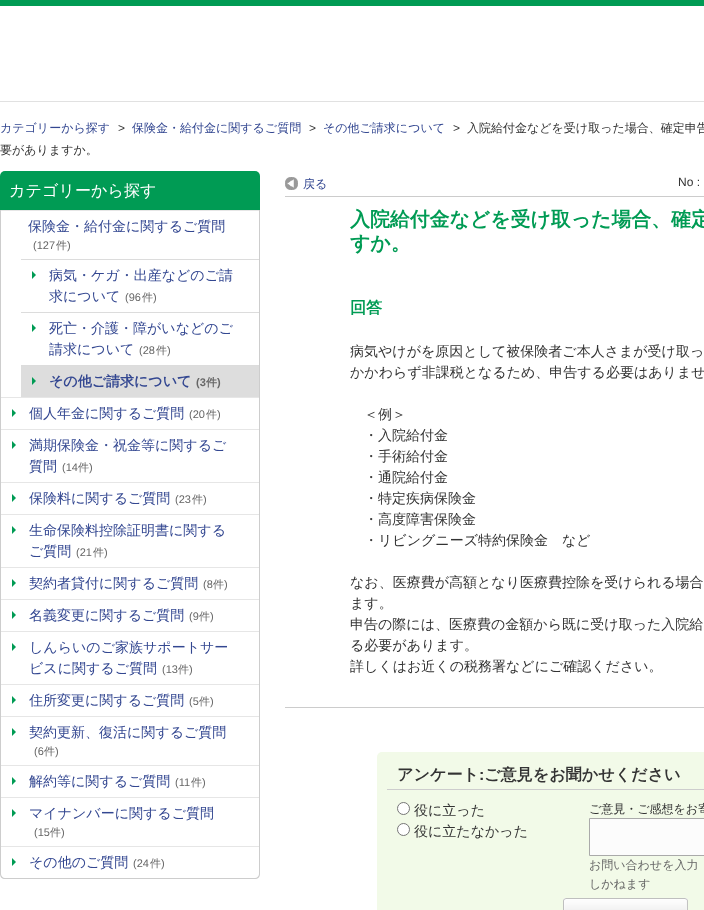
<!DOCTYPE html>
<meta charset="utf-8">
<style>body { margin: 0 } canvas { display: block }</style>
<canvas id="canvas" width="704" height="910"></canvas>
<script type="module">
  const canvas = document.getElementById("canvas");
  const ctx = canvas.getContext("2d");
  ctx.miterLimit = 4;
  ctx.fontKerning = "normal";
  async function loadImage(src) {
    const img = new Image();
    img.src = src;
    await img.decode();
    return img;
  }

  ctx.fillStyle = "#ffffff";
  ctx.fillRect(0, 0, 704, 910);
  ctx.fillStyle = "#009b54";
  ctx.fillRect(0, 0, 704, 6);
  ctx.fillStyle = "#e1e1e1";
  ctx.fillRect(0, 101, 704, 1);
  ctx.font = "500 12px WenQuanYi Zen Hei";
  ctx.fillStyle = "#334791";
  ctx.fillText("カテゴリーから探す", 0, 132);
  ctx.font = "12px Liberation Sans";
  ctx.fillStyle = "#333333";
  ctx.fillText(">", 118, 132);
  ctx.font = "500 12px WenQuanYi Zen Hei";
  ctx.fillStyle = "#334791";
  ctx.fillText("保険金・給付金に関するご質問", 132, 132);
  ctx.font = "12px Liberation Sans";
  ctx.fillStyle = "#333333";
  ctx.fillText(">", 309, 132);
  ctx.font = "500 12px WenQuanYi Zen Hei";
  ctx.fillStyle = "#334791";
  ctx.fillText("その他ご請求について", 323, 132);
  ctx.font = "12px Liberation Sans";
  ctx.fillStyle = "#333333";
  ctx.fillText(">", 453, 132);
  ctx.font = "500 12px WenQuanYi Zen Hei";
  ctx.fillText("入院給付金などを受け取った場合、確定申告", 467, 132);
  ctx.fillText("要がありますか。", 0, 154);
  ctx.fillStyle = "#009b54";
  ctx.beginPath();
  ctx.roundRect(0, 171, 260, 39, [5, 5, 0, 0]);
  ctx.fill();
  ctx.font = "500 16.1px WenQuanYi Zen Hei";
  ctx.fillStyle = "#ffffff";
  ctx.fillText("カテゴリーから探す", 9, 196);
  ctx.fillStyle = "#cdcdcd";
  ctx.beginPath();
  ctx.moveTo(0, 210);
  ctx.lineTo(260, 210);
  ctx.lineTo(260, 874);
  ctx.bezierCurveTo(260, 877, 258, 879, 255, 879);
  ctx.lineTo(5, 879);
  ctx.bezierCurveTo(2, 879, 0, 877, 0, 874);
  ctx.closePath();
  ctx.moveTo(1, 210);
  ctx.lineTo(259, 210);
  ctx.lineTo(259, 874);
  ctx.bezierCurveTo(259, 876, 257, 878, 255, 878);
  ctx.lineTo(5, 878);
  ctx.bezierCurveTo(3, 878, 1, 876, 1, 874);
  ctx.closePath();
  ctx.fill("evenodd");
  ctx.fillStyle = "#e6e6e6";
  ctx.fillRect(1, 210, 258, 1);
  ctx.font = "500 14px WenQuanYi Zen Hei";
  ctx.fillStyle = "#334791";
  ctx.fillText("保険金・給付金に関するご質問", 28, 231);
  ctx.font = "11px Liberation Sans";
  ctx.fillStyle = "#666666";
  ctx.fillText("(127", 33, 249);
  ctx.font = "500 11px WenQuanYi Zen Hei";
  ctx.fillText("件", 56, 249);
  ctx.font = "11px Liberation Sans";
  ctx.fillText(")", 67, 249);
  ctx.fillStyle = "#dcdcdc";
  ctx.fillRect(21, 259, 238, 1);
  ctx.fillStyle = "#009b54";
  ctx.beginPath();
  ctx.moveTo(32, 279);
  ctx.lineTo(32, 271);
  ctx.lineTo(36, 275);
  ctx.closePath();
  ctx.fill();
  ctx.font = "500 14px WenQuanYi Zen Hei";
  ctx.fillStyle = "#334791";
  ctx.fillText("病気・ケガ・出産などのご請", 49, 280);
  ctx.fillText("求について", 49, 301);
  ctx.font = "11px Liberation Sans";
  ctx.fillStyle = "#666666";
  ctx.fillText("(96", 125, 301);
  ctx.font = "500 11px WenQuanYi Zen Hei";
  ctx.fillText("件", 142, 301);
  ctx.font = "11px Liberation Sans";
  ctx.fillText(")", 153, 301);
  ctx.fillStyle = "#dcdcdc";
  ctx.fillRect(21, 312, 238, 1);
  ctx.fillStyle = "#009b54";
  ctx.beginPath();
  ctx.moveTo(32, 332);
  ctx.lineTo(32, 324);
  ctx.lineTo(36, 328);
  ctx.closePath();
  ctx.fill();
  ctx.font = "500 14px WenQuanYi Zen Hei";
  ctx.fillStyle = "#334791";
  ctx.fillText("死亡・介護・障がいなどのご", 49, 333);
  ctx.fillText("請求について", 49, 354);
  ctx.font = "11px Liberation Sans";
  ctx.fillStyle = "#666666";
  ctx.fillText("(28", 139, 354);
  ctx.font = "500 11px WenQuanYi Zen Hei";
  ctx.fillText("件", 156, 354);
  ctx.font = "11px Liberation Sans";
  ctx.fillText(")", 167, 354);
  ctx.fillStyle = "#dcdcdc";
  ctx.fillRect(21, 365, 238, 1);
  ctx.fillStyle = "#dddddd";
  ctx.fillRect(21, 366, 238, 31);
  ctx.fillStyle = "#009b54";
  ctx.beginPath();
  ctx.moveTo(32, 385);
  ctx.lineTo(32, 377);
  ctx.lineTo(36, 381);
  ctx.closePath();
  ctx.fill();
  ctx.font = "bold 14px WenQuanYi Zen Hei";
  ctx.fillStyle = "#334791";
  ctx.fillText("その他ご請求について", 49, 386);
  ctx.font = "bold 11px Liberation Sans";
  ctx.fillStyle = "#666666";
  ctx.fillText("(3", 196, 386);
  ctx.font = "bold 11px WenQuanYi Zen Hei";
  ctx.fillText("件", 206, 386);
  ctx.font = "bold 11px Liberation Sans";
  ctx.fillText(")", 217, 386);
  ctx.fillStyle = "#e6e6e6";
  ctx.fillRect(1, 397, 258, 1);
  ctx.fillStyle = "#009b54";
  ctx.beginPath();
  ctx.moveTo(12, 417);
  ctx.lineTo(12, 409);
  ctx.lineTo(16, 413);
  ctx.closePath();
  ctx.fill();
  ctx.font = "500 14px WenQuanYi Zen Hei";
  ctx.fillStyle = "#334791";
  ctx.fillText("個人年金に関するご質問", 29, 418);
  ctx.font = "11px Liberation Sans";
  ctx.fillStyle = "#666666";
  ctx.fillText("(20", 189, 418);
  ctx.font = "500 11px WenQuanYi Zen Hei";
  ctx.fillText("件", 206, 418);
  ctx.font = "11px Liberation Sans";
  ctx.fillText(")", 217, 418);
  ctx.fillStyle = "#e6e6e6";
  ctx.fillRect(1, 429, 258, 1);
  ctx.fillStyle = "#009b54";
  ctx.beginPath();
  ctx.moveTo(12, 449);
  ctx.lineTo(12, 441);
  ctx.lineTo(16, 445);
  ctx.closePath();
  ctx.fill();
  ctx.font = "500 14px WenQuanYi Zen Hei";
  ctx.fillStyle = "#334791";
  ctx.fillText("満期保険金・祝金等に関するご", 29, 450);
  ctx.fillText("質問", 29, 471);
  ctx.font = "11px Liberation Sans";
  ctx.fillStyle = "#666666";
  ctx.fillText("(14", 62, 471);
  ctx.font = "500 11px WenQuanYi Zen Hei";
  ctx.fillText("件", 78, 471);
  ctx.font = "11px Liberation Sans";
  ctx.fillText(")", 89, 471);
  ctx.fillStyle = "#e6e6e6";
  ctx.fillRect(1, 482, 258, 1);
  ctx.fillStyle = "#009b54";
  ctx.beginPath();
  ctx.moveTo(12, 502);
  ctx.lineTo(12, 494);
  ctx.lineTo(16, 498);
  ctx.closePath();
  ctx.fill();
  ctx.font = "500 14px WenQuanYi Zen Hei";
  ctx.fillStyle = "#334791";
  ctx.fillText("保険料に関するご質問", 29, 503);
  ctx.font = "11px Liberation Sans";
  ctx.fillStyle = "#666666";
  ctx.fillText("(23", 175, 503);
  ctx.font = "500 11px WenQuanYi Zen Hei";
  ctx.fillText("件", 192, 503);
  ctx.font = "11px Liberation Sans";
  ctx.fillText(")", 203, 503);
  ctx.fillStyle = "#e6e6e6";
  ctx.fillRect(1, 514, 258, 1);
  ctx.fillStyle = "#009b54";
  ctx.beginPath();
  ctx.moveTo(12, 534);
  ctx.lineTo(12, 526);
  ctx.lineTo(16, 530);
  ctx.closePath();
  ctx.fill();
  ctx.font = "500 14px WenQuanYi Zen Hei";
  ctx.fillStyle = "#334791";
  ctx.fillText("生命保険料控除証明書に関する", 29, 535);
  ctx.fillText("ご質問", 29, 556);
  ctx.font = "11px Liberation Sans";
  ctx.fillStyle = "#666666";
  ctx.fillText("(21", 76, 556);
  ctx.font = "500 11px WenQuanYi Zen Hei";
  ctx.fillText("件", 93, 556);
  ctx.font = "11px Liberation Sans";
  ctx.fillText(")", 104, 556);
  ctx.fillStyle = "#e6e6e6";
  ctx.fillRect(1, 567, 258, 1);
  ctx.fillStyle = "#009b54";
  ctx.beginPath();
  ctx.moveTo(12, 587);
  ctx.lineTo(12, 579);
  ctx.lineTo(16, 583);
  ctx.closePath();
  ctx.fill();
  ctx.font = "500 14px WenQuanYi Zen Hei";
  ctx.fillStyle = "#334791";
  ctx.fillText("契約者貸付に関するご質問", 29, 588);
  ctx.font = "11px Liberation Sans";
  ctx.fillStyle = "#666666";
  ctx.fillText("(8", 203, 588);
  ctx.font = "500 11px WenQuanYi Zen Hei";
  ctx.fillText("件", 213, 588);
  ctx.font = "11px Liberation Sans";
  ctx.fillText(")", 224, 588);
  ctx.fillStyle = "#e6e6e6";
  ctx.fillRect(1, 599, 258, 1);
  ctx.fillStyle = "#009b54";
  ctx.beginPath();
  ctx.moveTo(12, 619);
  ctx.lineTo(12, 611);
  ctx.lineTo(16, 615);
  ctx.closePath();
  ctx.fill();
  ctx.font = "500 14px WenQuanYi Zen Hei";
  ctx.fillStyle = "#334791";
  ctx.fillText("名義変更に関するご質問", 29, 620);
  ctx.font = "11px Liberation Sans";
  ctx.fillStyle = "#666666";
  ctx.fillText("(9", 189, 620);
  ctx.font = "500 11px WenQuanYi Zen Hei";
  ctx.fillText("件", 199, 620);
  ctx.font = "11px Liberation Sans";
  ctx.fillText(")", 210, 620);
  ctx.fillStyle = "#e6e6e6";
  ctx.fillRect(1, 631, 258, 1);
  ctx.fillStyle = "#009b54";
  ctx.beginPath();
  ctx.moveTo(12, 651);
  ctx.lineTo(12, 643);
  ctx.lineTo(16, 647);
  ctx.closePath();
  ctx.fill();
  ctx.font = "500 14px WenQuanYi Zen Hei";
  ctx.fillStyle = "#334791";
  ctx.fillText("しんらいのご家族サポートサー", 29, 652);
  ctx.fillText("ビスに関するご質問", 29, 673);
  ctx.font = "11px Liberation Sans";
  ctx.fillStyle = "#666666";
  ctx.fillText("(13", 162, 673);
  ctx.font = "500 11px WenQuanYi Zen Hei";
  ctx.fillText("件", 178, 673);
  ctx.font = "11px Liberation Sans";
  ctx.fillText(")", 189, 673);
  ctx.fillStyle = "#e6e6e6";
  ctx.fillRect(1, 684, 258, 1);
  ctx.fillStyle = "#009b54";
  ctx.beginPath();
  ctx.moveTo(12, 704);
  ctx.lineTo(12, 696);
  ctx.lineTo(16, 700);
  ctx.closePath();
  ctx.fill();
  ctx.font = "500 14px WenQuanYi Zen Hei";
  ctx.fillStyle = "#334791";
  ctx.fillText("住所変更に関するご質問", 29, 705);
  ctx.font = "11px Liberation Sans";
  ctx.fillStyle = "#666666";
  ctx.fillText("(5", 189, 705);
  ctx.font = "500 11px WenQuanYi Zen Hei";
  ctx.fillText("件", 199, 705);
  ctx.font = "11px Liberation Sans";
  ctx.fillText(")", 210, 705);
  ctx.fillStyle = "#e6e6e6";
  ctx.fillRect(1, 716, 258, 1);
  ctx.fillStyle = "#009b54";
  ctx.beginPath();
  ctx.moveTo(12, 736);
  ctx.lineTo(12, 728);
  ctx.lineTo(16, 732);
  ctx.closePath();
  ctx.fill();
  ctx.font = "500 14px WenQuanYi Zen Hei";
  ctx.fillStyle = "#334791";
  ctx.fillText("契約更新、復活に関するご質問", 29, 737);
  ctx.font = "11px Liberation Sans";
  ctx.fillStyle = "#666666";
  ctx.fillText("(6", 34, 755);
  ctx.font = "500 11px WenQuanYi Zen Hei";
  ctx.fillText("件", 44, 755);
  ctx.font = "11px Liberation Sans";
  ctx.fillText(")", 55, 755);
  ctx.fillStyle = "#e6e6e6";
  ctx.fillRect(1, 765, 258, 1);
  ctx.fillStyle = "#009b54";
  ctx.beginPath();
  ctx.moveTo(12, 785);
  ctx.lineTo(12, 777);
  ctx.lineTo(16, 781);
  ctx.closePath();
  ctx.fill();
  ctx.font = "500 14px WenQuanYi Zen Hei";
  ctx.fillStyle = "#334791";
  ctx.fillText("解約等に関するご質問", 29, 786);
  ctx.font = "11px Liberation Sans";
  ctx.fillStyle = "#666666";
  ctx.fillText("(11", 175, 786);
  ctx.font = "500 11px WenQuanYi Zen Hei";
  ctx.fillText("件", 191, 786);
  ctx.font = "11px Liberation Sans";
  ctx.fillText(")", 202, 786);
  ctx.fillStyle = "#e6e6e6";
  ctx.fillRect(1, 797, 258, 1);
  ctx.fillStyle = "#009b54";
  ctx.beginPath();
  ctx.moveTo(12, 817);
  ctx.lineTo(12, 809);
  ctx.lineTo(16, 813);
  ctx.closePath();
  ctx.fill();
  ctx.font = "500 14px WenQuanYi Zen Hei";
  ctx.fillStyle = "#334791";
  ctx.fillText("マイナンバーに関するご質問", 29, 818);
  ctx.font = "11px Liberation Sans";
  ctx.fillStyle = "#666666";
  ctx.fillText("(15", 34, 836);
  ctx.font = "500 11px WenQuanYi Zen Hei";
  ctx.fillText("件", 50, 836);
  ctx.font = "11px Liberation Sans";
  ctx.fillText(")", 61, 836);
  ctx.fillStyle = "#e6e6e6";
  ctx.fillRect(1, 846, 258, 1);
  ctx.fillStyle = "#009b54";
  ctx.beginPath();
  ctx.moveTo(12, 866);
  ctx.lineTo(12, 858);
  ctx.lineTo(16, 862);
  ctx.closePath();
  ctx.fill();
  ctx.font = "500 14px WenQuanYi Zen Hei";
  ctx.fillStyle = "#334791";
  ctx.fillText("その他のご質問", 29, 867);
  ctx.font = "11px Liberation Sans";
  ctx.fillStyle = "#666666";
  ctx.fillText("(24", 133, 867);
  ctx.font = "500 11px WenQuanYi Zen Hei";
  ctx.fillText("件", 150, 867);
  ctx.font = "11px Liberation Sans";
  ctx.fillText(")", 161, 867);
  ctx.fillStyle = "#cccccc";
  ctx.fillRect(285, 196, 419, 1);
  ctx.drawImage(await loadImage("img1.png"), 285, 177, 13, 13);
  ctx.font = "500 12px WenQuanYi Zen Hei";
  ctx.fillStyle = "#334791";
  ctx.fillText("戻る", 303, 188);
  ctx.font = "12px Liberation Sans";
  ctx.fillStyle = "#333333";
  ctx.fillText("No :", 678, 186);
  ctx.font = "bold 19.9px WenQuanYi Zen Hei";
  ctx.fillStyle = "#009b54";
  ctx.fillText("入院給付金などを受け取った場合、確定", 350, 226);
  ctx.fillText("すか。", 350, 250);
  ctx.font = "bold 16.1px WenQuanYi Zen Hei";
  ctx.fillText("回答", 350, 313);
  ctx.fillStyle = "#cccccc";
  ctx.fillRect(285, 707, 419, 1);
  ctx.font = "500 14px WenQuanYi Zen Hei";
  ctx.fillStyle = "#333333";
  ctx.fillText("病気やけがを原因として被保険者ご本人さまが受け取っ", 350, 356);
  ctx.fillText("かかわらず非課税となるため、申告する必要はありませ", 350, 377);
  ctx.fillText("＜例＞", 364, 419);
  ctx.fillText("・入院給付金", 364, 440);
  ctx.fillText("・手術給付金", 364, 461);
  ctx.fillText("・通院給付金", 364, 482);
  ctx.fillText("・特定疾病保険金", 364, 503);
  ctx.fillText("・高度障害保険金", 364, 524);
  ctx.fillText("・リビングニーズ特約保険金　など", 364, 545);
  ctx.fillText("なお、医療費が高額となり医療費控除を受けられる場合", 350, 587);
  ctx.fillText("ます。", 350, 608);
  ctx.fillText("申告の際には、医療費の金額から既に受け取った入院給", 350, 629);
  ctx.fillText("る必要があります。", 350, 650);
  ctx.fillText("詳しくはお近くの税務署などにご確認ください。", 350, 671);
  ctx.fillStyle = "#f2fae8";
  ctx.beginPath();
  ctx.roundRect(377, 752, 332, 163, 5);
  ctx.fill();
  ctx.fillStyle = "#cdcdcd";
  ctx.fillRect(387, 789, 317, 1);
  ctx.font = "bold 16.1px WenQuanYi Zen Hei";
  ctx.fillStyle = "#333333";
  ctx.fillText("アンケート", 397, 780);
  ctx.font = "bold 16.1px Liberation Sans";
  ctx.fillText(":", 479, 780);
  ctx.font = "bold 16.1px WenQuanYi Zen Hei";
  ctx.fillText("ご意見をお聞かせください", 484, 780);
  ctx.fillStyle = "#ffffff";
  ctx.beginPath();
  ctx.arc(403.5, 808.5, 6, 0, Math.PI * 2);
  ctx.fill();
  ctx.strokeStyle = "#767676";
  ctx.stroke();
  ctx.font = "500 14px WenQuanYi Zen Hei";
  ctx.fillStyle = "#333333";
  ctx.fillText("役に立った", 414, 815);
  ctx.fillStyle = "#ffffff";
  ctx.beginPath();
  ctx.arc(403.5, 829.5, 6, 0, Math.PI * 2);
  ctx.fill();
  ctx.stroke();
  ctx.fillStyle = "#333333";
  ctx.fillText("役に立たなかった", 414, 836);
  ctx.font = "500 12px WenQuanYi Zen Hei";
  ctx.fillText("ご意見・ご感想をお寄", 589, 813);
  ctx.fillStyle = "#fcfcfc";
  ctx.beginPath();
  ctx.rect(589.5, 818.5, 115, 37);
  ctx.fill();
  ctx.strokeStyle = "#aaaaaa";
  ctx.stroke();
  ctx.fillStyle = "#666666";
  ctx.fillText("お問い合わせを入力", 589, 869);
  ctx.fillText("しかねます", 589, 888);
  ctx.drawImage(await loadImage("img2.png"), 563, 898, 125, 12);
</script>
